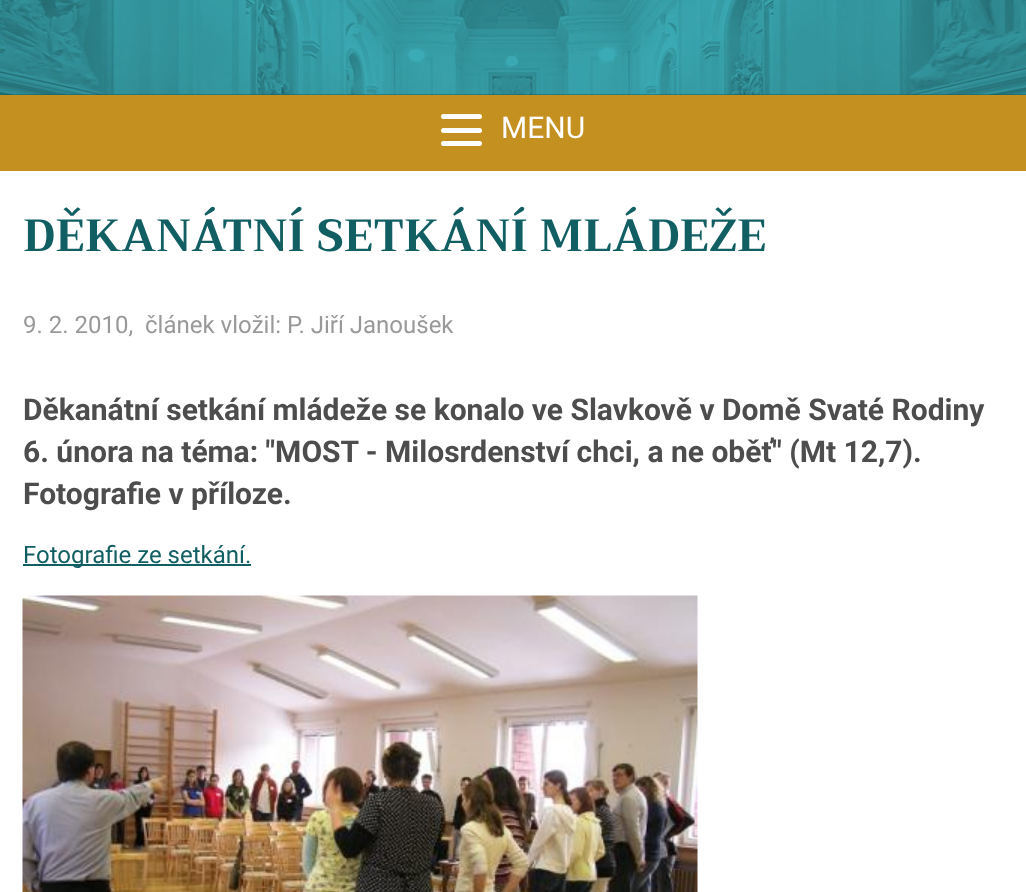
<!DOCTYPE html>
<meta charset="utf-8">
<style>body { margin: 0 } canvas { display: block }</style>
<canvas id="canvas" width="1026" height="892"></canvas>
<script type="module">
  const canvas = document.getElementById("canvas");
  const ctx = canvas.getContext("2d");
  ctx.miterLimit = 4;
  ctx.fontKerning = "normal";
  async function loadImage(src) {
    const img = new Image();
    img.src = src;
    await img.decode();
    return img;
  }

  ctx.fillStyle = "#ffffff";
  ctx.fillRect(0, 0, 1026, 892);
  ctx.fillStyle = "#c49020";
  ctx.fillRect(0, 95, 1026, 76);
  ctx.fillStyle = "#115e63";
  ctx.fillRect(0, 94, 1026, 1);
  ctx.drawImage(await loadImage("img1.png"), 0, 0, 1026, 95);
  ctx.fillStyle = "#ffffff";
  ctx.beginPath();
  ctx.roundRect(441, 128, 41, 5, 2.5);
  ctx.fill();
  ctx.beginPath();
  ctx.roundRect(441, 114, 41, 5, 2.5);
  ctx.fill();
  ctx.beginPath();
  ctx.roundRect(441, 141, 41, 5, 2.5);
  ctx.fill();
  ctx.font = "30px Roboto";
  ctx.fillText("MENU", 501, 138);
  ctx.font = "bold 45px Trirong";
  ctx.fillStyle = "#115e63";
  ctx.fillText("DĚKANÁTNÍ SETKÁNÍ MLÁDEŽE", 23, 251);
  ctx.font = "24px Roboto";
  ctx.fillStyle = "#999999";
  ctx.fillText("9. 2. 2010,", 23, 333);
  ctx.fillText("článek vložil: P. Jiří Janoušek", 145, 333);
  ctx.font = "bold 30px Roboto";
  ctx.fillStyle = "#4d4d4d";
  ctx.fillText("Děkanátní setkání mládeže se konalo ve Slavkově v Domě Svaté Rodiny", 23, 420);
  ctx.fillText("6. února na téma: \"MOST - Milosrdenství chci, a ne oběť\" (Mt 12,7).", 23, 462);
  ctx.fillText("Fotografie v příloze.", 23, 504);
  ctx.fillStyle = "#115e63";
  ctx.fillRect(23, 564, 228, 2);
  ctx.font = "24px Roboto";
  ctx.fillText("Fotografie ze setkání.", 23, 563);
  ctx.drawImage(await loadImage("img2.png"), 22, 595, 676, 297);
</script>
